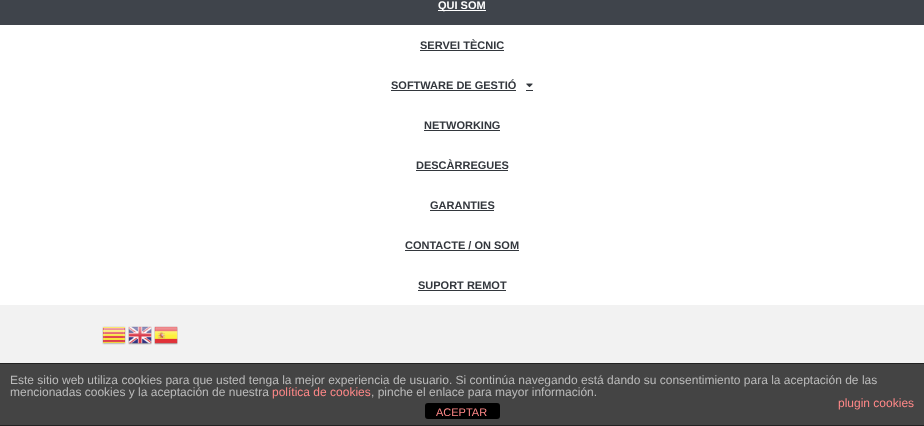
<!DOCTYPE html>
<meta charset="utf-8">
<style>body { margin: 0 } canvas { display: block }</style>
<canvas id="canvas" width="924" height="426"></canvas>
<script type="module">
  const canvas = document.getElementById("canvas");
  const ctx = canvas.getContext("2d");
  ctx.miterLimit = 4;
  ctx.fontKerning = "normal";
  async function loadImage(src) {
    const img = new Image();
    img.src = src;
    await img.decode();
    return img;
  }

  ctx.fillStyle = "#f2f2f2";
  ctx.fillRect(0, 0, 924, 426);
  ctx.fillStyle = "#ffffff";
  ctx.fillRect(0, 25, 924, 280);
  ctx.fillStyle = "#3f444b";
  ctx.fillRect(0, 0, 924, 25);
  ctx.fillStyle = "#ffffff";
  ctx.fillRect(438, 10, 48, 1);
  ctx.font = "bold 11px Liberation Sans";
  ctx.fillText("QUI SOM", 438, 9);
  ctx.fillStyle = "#33373d";
  ctx.fillText("SERVEI TÈCNIC", 420, 49);
  ctx.fillRect(420, 50, 84, 1);
  ctx.fillText("SOFTWARE DE GESTIÓ", 391, 89);
  ctx.fillRect(391, 90, 125, 1);
  ctx.drawImage(await loadImage("img1.png"), 526, 83, 7, 5);
  ctx.fillRect(526, 90, 7, 1);
  ctx.fillText("NETWORKING", 424, 129);
  ctx.fillRect(424, 130, 76, 1);
  ctx.fillText("DESCÀRREGUES", 416, 169);
  ctx.fillRect(416, 170, 92, 1);
  ctx.fillText("GARANTIES", 430, 209);
  ctx.fillRect(430, 210, 64, 1);
  ctx.fillText("CONTACTE / ON SOM", 405, 249);
  ctx.fillRect(405, 250, 114, 1);
  ctx.fillText("SUPORT REMOT", 418, 289);
  ctx.fillRect(418, 290, 88, 1);
  ctx.drawImage(await loadImage("img2.png"), 102, 326, 24, 19);
  ctx.drawImage(await loadImage("img3.png"), 128, 326, 24, 19);
  ctx.drawImage(await loadImage("img4.png"), 154, 326, 24, 19);
  ctx.fillStyle = "#444444";
  ctx.fillRect(0, 364, 924, 61);
  ctx.fillStyle = "#222222";
  ctx.fillRect(0, 363, 924, 1);
  ctx.fillRect(0, 425, 924, 1);
  ctx.font = "12px Liberation Sans";
  ctx.fillStyle = "#bbbbbb";
  ctx.fillText("Este sitio web utiliza cookies para que usted tenga la mejor experiencia de usuario. Si continúa navegando está dando su consentimiento para la aceptación de las", 10, 384);
  ctx.fillText("mencionadas cookies y la aceptación de nuestra", 10, 396);
  ctx.fillStyle = "#ff8888";
  ctx.fillText("política de cookies", 272, 396);
  ctx.fillStyle = "#bbbbbb";
  ctx.fillText(", pinche el enlace para mayor información.", 371, 396);
  ctx.fillStyle = "#ff8888";
  ctx.fillText("plugin cookies", 838, 407);
  ctx.fillStyle = "#000000";
  ctx.beginPath();
  ctx.roundRect(425, 403, 75, 16, 3);
  ctx.fill();
  ctx.font = "11px Liberation Sans";
  ctx.fillStyle = "#ff8888";
  ctx.fillText("ACEPTAR", 436, 416);
</script>
